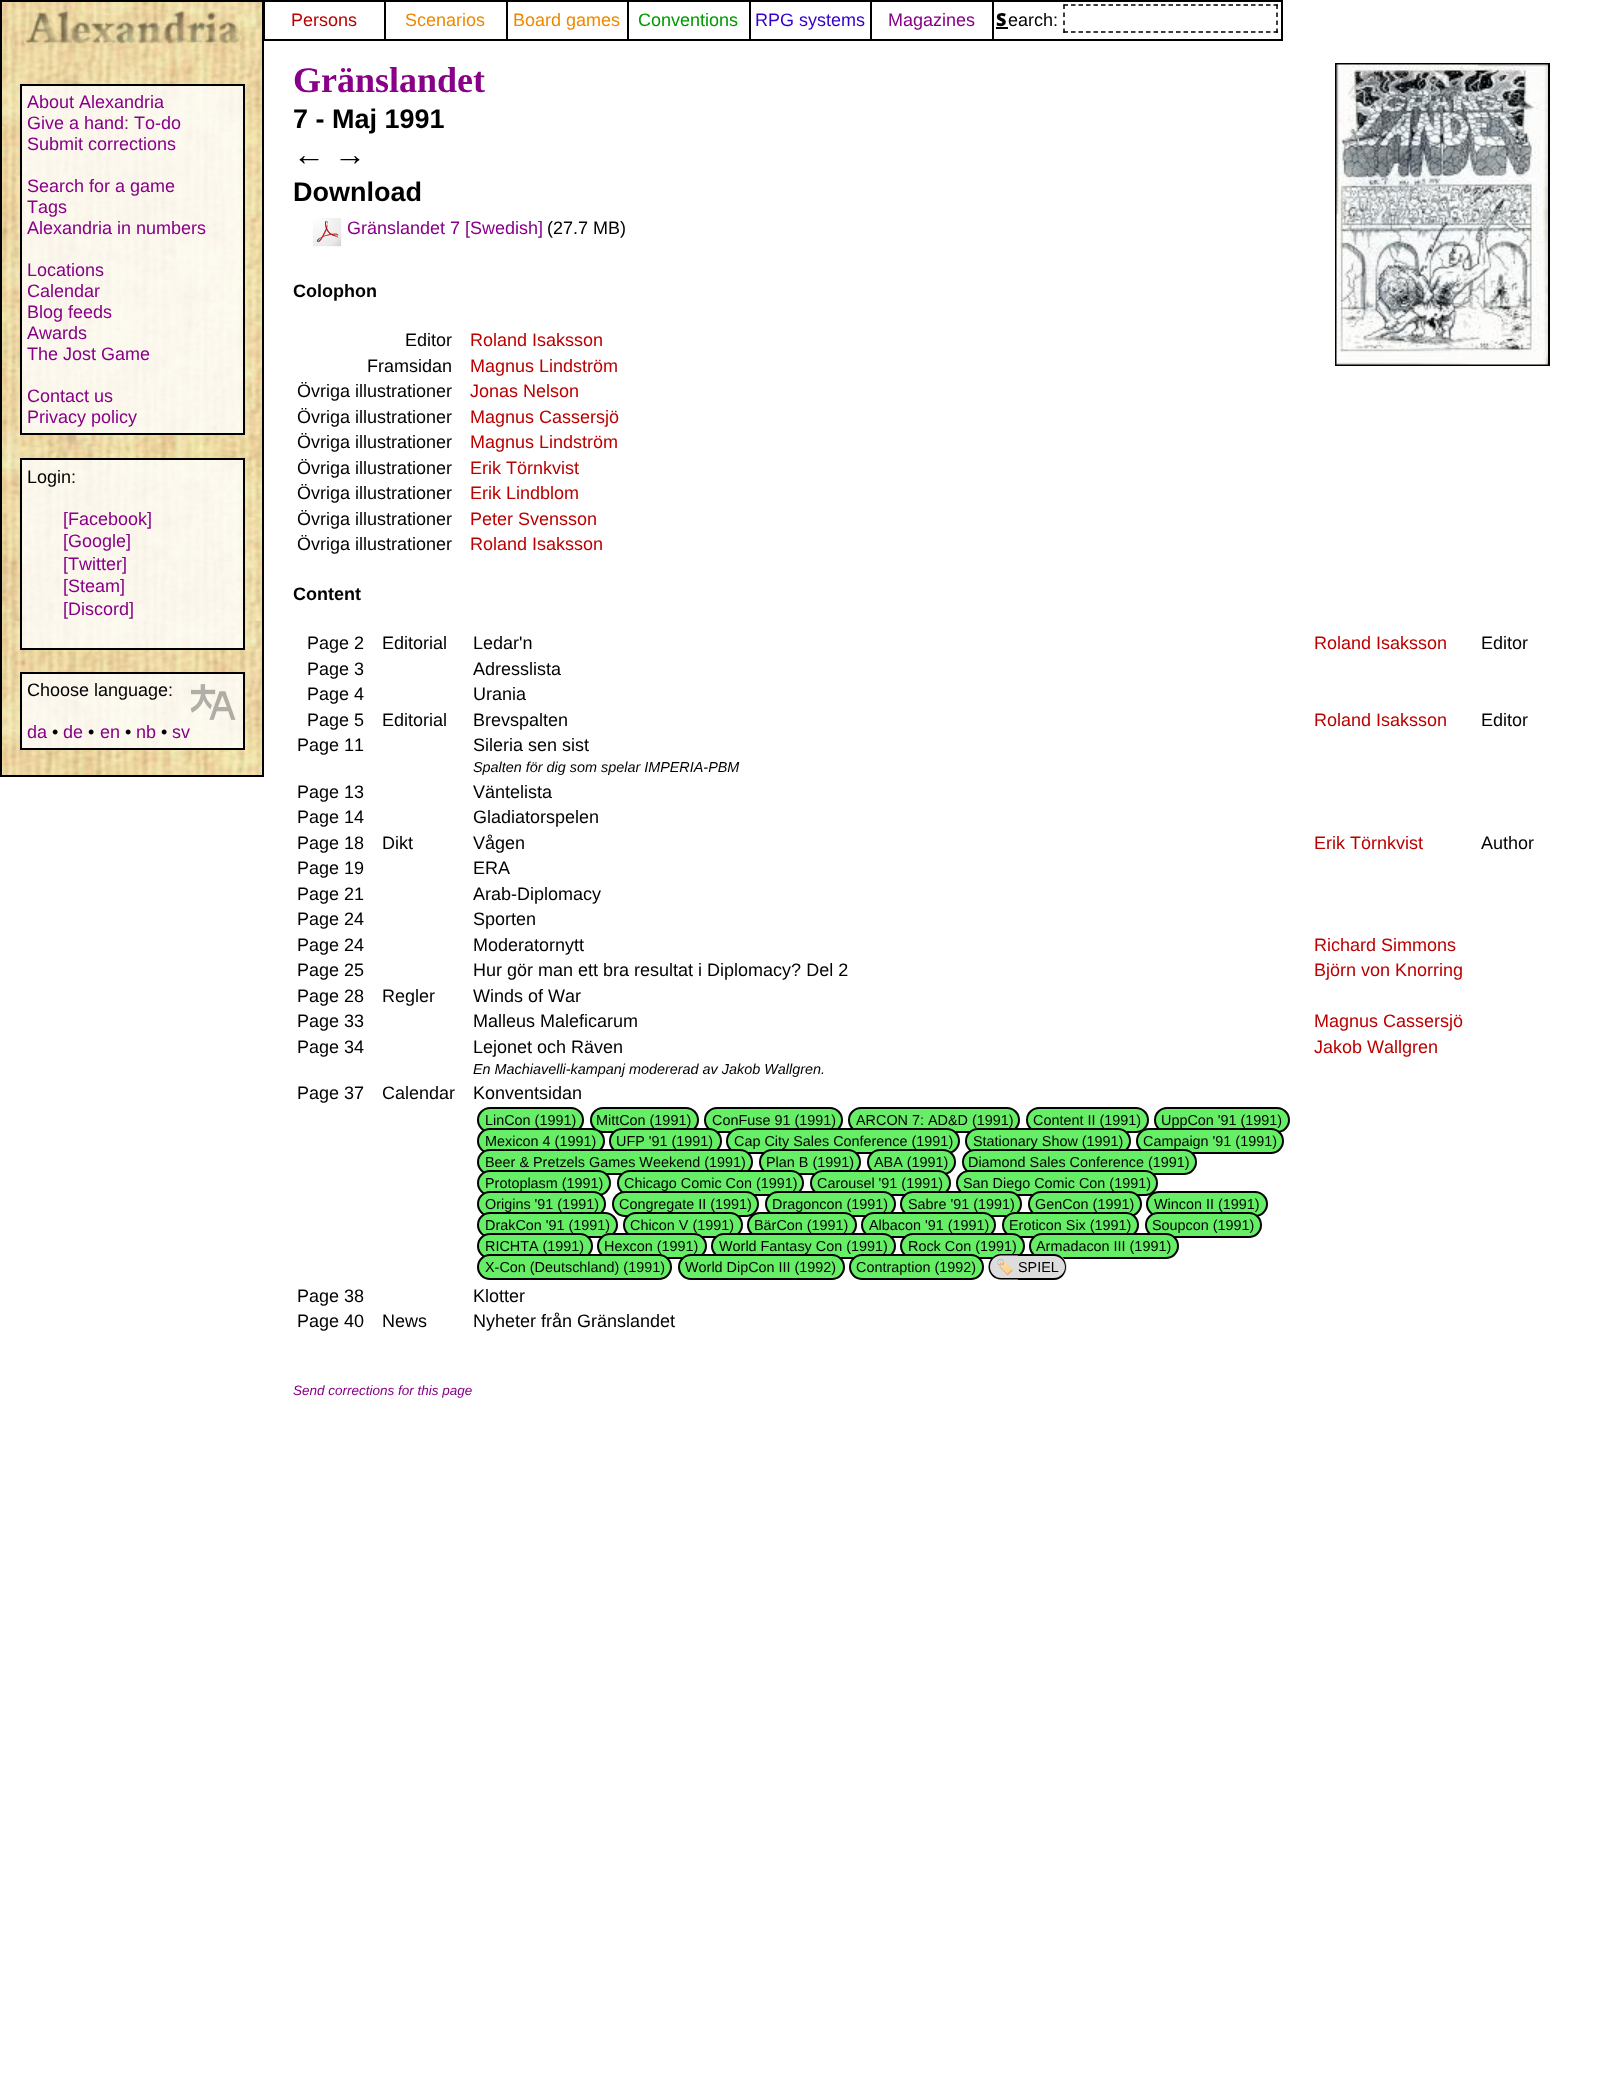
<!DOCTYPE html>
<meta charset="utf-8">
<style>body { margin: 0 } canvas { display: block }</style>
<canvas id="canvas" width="1622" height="2094"></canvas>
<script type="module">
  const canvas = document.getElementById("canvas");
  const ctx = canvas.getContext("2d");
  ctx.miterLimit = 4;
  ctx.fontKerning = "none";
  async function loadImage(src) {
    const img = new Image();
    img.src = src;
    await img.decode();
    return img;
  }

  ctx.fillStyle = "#ffffff";
  ctx.fillRect(0, 0, 1622, 2094);
  ctx.drawImage(await loadImage("img1.png"), 2, 2, 260, 773);
  ctx.strokeStyle = "#000000";
  ctx.lineWidth = 2;
  ctx.strokeRect(1, 1, 262, 775);
  ctx.strokeRect(264, 1, 1018, 39);
  ctx.fillStyle = "#000000";
  ctx.fillRect(384, 2, 2, 37);
  ctx.font = "18px Liberation Sans";
  ctx.fillStyle = "#bb0000";
  ctx.fillText("Persons", 291, 26);
  ctx.fillStyle = "#000000";
  ctx.fillRect(506, 2, 2, 37);
  ctx.fillStyle = "#ee8800";
  ctx.fillText("Scenarios", 405, 26);
  ctx.fillStyle = "#000000";
  ctx.fillRect(627, 2, 2, 37);
  ctx.fillStyle = "#ee8800";
  ctx.fillText("Board games", 513, 26);
  ctx.fillStyle = "#000000";
  ctx.fillRect(749, 2, 2, 37);
  ctx.fillStyle = "#009900";
  ctx.fillText("Conventions", 638, 26);
  ctx.fillStyle = "#000000";
  ctx.fillRect(870, 2, 2, 37);
  ctx.fillStyle = "#3300cc";
  ctx.fillText("RPG systems", 755, 26);
  ctx.fillStyle = "#000000";
  ctx.fillRect(992, 2, 2, 37);
  ctx.fillStyle = "#880088";
  ctx.fillText("Magazines", 888, 26);
  ctx.font = "900 18px Noto Sans";
  ctx.fillStyle = "#000000";
  ctx.fillText("S", 996, 26);
  ctx.fillRect(996, 27, 12, 2);
  ctx.font = "18px Liberation Sans";
  ctx.fillText("earch:", 1008, 26);
  ctx.beginPath();
  ctx.moveTo(1063.5, 5);
  ctx.lineTo(1278, 5);
  ctx.lineWidth = 1.5;
  ctx.setLineDash([4.5, 3]);
  ctx.stroke();
  ctx.beginPath();
  ctx.moveTo(1277, 4.5);
  ctx.lineTo(1277, 33);
  ctx.setLineDash([4.5, 3.5]);
  ctx.stroke();
  ctx.beginPath();
  ctx.moveTo(1063.5, 32);
  ctx.lineTo(1278, 32);
  ctx.setLineDash([4.5, 3]);
  ctx.stroke();
  ctx.beginPath();
  ctx.moveTo(1064, 4.5);
  ctx.lineTo(1064, 33);
  ctx.setLineDash([4.5, 3.5]);
  ctx.stroke();
  ctx.drawImage(await loadImage("img2.png"), 23, 10, 223, 38);
  ctx.fillStyle = "rgba(255, 255, 255, 0.8)";
  ctx.beginPath();
  ctx.rect(21, 85, 223, 349);
  ctx.fill();
  ctx.lineWidth = 2;
  ctx.setLineDash([]);
  ctx.stroke();
  ctx.fillStyle = "#880088";
  ctx.fillText("About Alexandria", 27, 108);
  ctx.fillText("Give a hand: To-do", 27, 129);
  ctx.fillText("Submit corrections", 27, 150);
  ctx.fillText("Search for a game", 27, 192);
  ctx.fillText("Tags", 27, 213);
  ctx.fillText("Alexandria in numbers", 27, 234);
  ctx.fillText("Locations", 27, 276);
  ctx.fillText("Calendar", 27, 297);
  ctx.fillText("Blog feeds", 27, 318);
  ctx.fillText("Awards", 27, 339);
  ctx.fillText("The Jost Game", 27, 360);
  ctx.fillText("Contact us", 27, 402);
  ctx.fillText("Privacy policy", 27, 423);
  ctx.fillStyle = "rgba(255, 255, 255, 0.8)";
  ctx.beginPath();
  ctx.rect(21, 459, 223, 190);
  ctx.fill();
  ctx.stroke();
  ctx.fillStyle = "#000000";
  ctx.fillText("Login:", 27, 483);
  ctx.fillStyle = "#880088";
  ctx.fillText("[Facebook]", 63, 525);
  ctx.fillText("[Google]", 63, 547);
  ctx.fillText("[Twitter]", 63, 570);
  ctx.fillText("[Steam]", 63, 592);
  ctx.fillText("[Discord]", 63, 615);
  ctx.fillStyle = "rgba(255, 255, 255, 0.8)";
  ctx.beginPath();
  ctx.rect(21, 673, 223, 76);
  ctx.fill();
  ctx.stroke();
  ctx.fillStyle = "#000000";
  ctx.fillText("Choose language:", 27, 696);
  ctx.drawImage(await loadImage("img3.png"), 191, 684, 45, 36);
  ctx.fillStyle = "#880088";
  ctx.fillText("da", 27, 738);
  ctx.fillStyle = "#000000";
  ctx.fillText("•", 52, 738);
  ctx.fillStyle = "#880088";
  ctx.fillText("de", 63, 738);
  ctx.fillStyle = "#000000";
  ctx.fillText("•", 88, 738);
  ctx.fillStyle = "#880088";
  ctx.fillText("en", 100, 738);
  ctx.fillStyle = "#000000";
  ctx.fillText("•", 125, 738);
  ctx.fillStyle = "#880088";
  ctx.fillText("nb", 136, 738);
  ctx.fillStyle = "#000000";
  ctx.fillText("•", 161, 738);
  ctx.fillStyle = "#880088";
  ctx.fillText("sv", 172, 738);
  ctx.strokeRect(1336, 64, 213, 301);
  ctx.drawImage(await loadImage("img4.png"), 1336, 64, 212, 301);
  ctx.font = "bold 36px Liberation Serif";
  ctx.fillText("Gränslandet", 293, 92);
  ctx.font = "bold 27px Liberation Sans";
  ctx.fillStyle = "#000000";
  ctx.fillText("7 - Maj 1991", 293, 128);
  ctx.font = "bold 32px Liberation Sans";
  ctx.fillText("← →", 293, 165);
  ctx.font = "bold 27px Liberation Sans";
  ctx.fillText("Download", 293, 201);
  ctx.drawImage(await loadImage("img5.png"), 313, 218, 29, 29);
  ctx.font = "18px Liberation Sans";
  ctx.fillStyle = "#880088";
  ctx.fillText("Gränslandet 7 [Swedish]", 347, 234);
  ctx.fillStyle = "#000000";
  ctx.fillText("(27.7 MB)", 547, 234);
  ctx.font = "bold 18px Liberation Sans";
  ctx.fillText("Colophon", 293, 297);
  ctx.font = "18px Liberation Sans";
  ctx.fillText("Editor", 405, 346);
  ctx.fillStyle = "#bb0000";
  ctx.fillText("Roland Isaksson", 470, 346);
  ctx.fillStyle = "#000000";
  ctx.fillText("Framsidan", 367, 372);
  ctx.fillStyle = "#bb0000";
  ctx.fillText("Magnus Lindström", 470, 372);
  ctx.fillStyle = "#000000";
  ctx.fillText("Övriga illustrationer", 297, 397);
  ctx.fillStyle = "#bb0000";
  ctx.fillText("Jonas Nelson", 470, 397);
  ctx.fillStyle = "#000000";
  ctx.fillText("Övriga illustrationer", 297, 423);
  ctx.fillStyle = "#bb0000";
  ctx.fillText("Magnus Cassersjö", 470, 423);
  ctx.fillStyle = "#000000";
  ctx.fillText("Övriga illustrationer", 297, 448);
  ctx.fillStyle = "#bb0000";
  ctx.fillText("Magnus Lindström", 470, 448);
  ctx.fillStyle = "#000000";
  ctx.fillText("Övriga illustrationer", 297, 474);
  ctx.fillStyle = "#bb0000";
  ctx.fillText("Erik Törnkvist", 470, 474);
  ctx.fillStyle = "#000000";
  ctx.fillText("Övriga illustrationer", 297, 499);
  ctx.fillStyle = "#bb0000";
  ctx.fillText("Erik Lindblom", 470, 499);
  ctx.fillStyle = "#000000";
  ctx.fillText("Övriga illustrationer", 297, 525);
  ctx.fillStyle = "#bb0000";
  ctx.fillText("Peter Svensson", 470, 525);
  ctx.fillStyle = "#000000";
  ctx.fillText("Övriga illustrationer", 297, 550);
  ctx.fillStyle = "#bb0000";
  ctx.fillText("Roland Isaksson", 470, 550);
  ctx.font = "bold 18px Liberation Sans";
  ctx.fillStyle = "#000000";
  ctx.fillText("Content", 293, 600);
  ctx.font = "18px Liberation Sans";
  ctx.fillText("Page 2", 307, 649);
  ctx.fillText("Editorial", 382, 649);
  ctx.fillText("Ledar'n", 473, 649);
  ctx.fillStyle = "#bb0000";
  ctx.fillText("Roland Isaksson", 1314, 649);
  ctx.fillStyle = "#000000";
  ctx.fillText("Editor", 1481, 649);
  ctx.fillText("Page 3", 307, 675);
  ctx.fillText("Adresslista", 473, 675);
  ctx.fillText("Page 4", 307, 700);
  ctx.fillText("Urania", 473, 700);
  ctx.fillText("Page 5", 307, 726);
  ctx.fillText("Editorial", 382, 726);
  ctx.fillText("Brevspalten", 473, 726);
  ctx.fillStyle = "#bb0000";
  ctx.fillText("Roland Isaksson", 1314, 726);
  ctx.fillStyle = "#000000";
  ctx.fillText("Editor", 1481, 726);
  ctx.fillText("Page 11", 297, 751);
  ctx.fillText("Sileria sen sist", 473, 751);
  ctx.font = "italic 14.4px Liberation Sans";
  ctx.fillText("Spalten för dig som spelar IMPERIA-PBM", 473, 772);
  ctx.font = "18px Liberation Sans";
  ctx.fillText("Page 13", 297, 798);
  ctx.fillText("Väntelista", 473, 798);
  ctx.fillText("Page 14", 297, 823);
  ctx.fillText("Gladiatorspelen", 473, 823);
  ctx.fillText("Page 18", 297, 849);
  ctx.fillText("Dikt", 382, 849);
  ctx.fillText("Vågen", 473, 849);
  ctx.fillStyle = "#bb0000";
  ctx.fillText("Erik Törnkvist", 1314, 849);
  ctx.fillStyle = "#000000";
  ctx.fillText("Author", 1481, 849);
  ctx.fillText("Page 19", 297, 874);
  ctx.fillText("ERA", 473, 874);
  ctx.fillText("Page 21", 297, 900);
  ctx.fillText("Arab-Diplomacy", 473, 900);
  ctx.fillText("Page 24", 297, 925);
  ctx.fillText("Sporten", 473, 925);
  ctx.fillText("Page 24", 297, 951);
  ctx.fillText("Moderatornytt", 473, 951);
  ctx.fillStyle = "#bb0000";
  ctx.fillText("Richard Simmons", 1314, 951);
  ctx.fillStyle = "#000000";
  ctx.fillText("Page 25", 297, 976);
  ctx.fillText("Hur gör man ett bra resultat i Diplomacy? Del 2", 473, 976);
  ctx.fillStyle = "#bb0000";
  ctx.fillText("Björn von Knorring", 1314, 976);
  ctx.fillStyle = "#000000";
  ctx.fillText("Page 28", 297, 1002);
  ctx.fillText("Regler", 382, 1002);
  ctx.fillText("Winds of War", 473, 1002);
  ctx.fillText("Page 33", 297, 1027);
  ctx.fillText("Malleus Maleficarum", 473, 1027);
  ctx.fillStyle = "#bb0000";
  ctx.fillText("Magnus Cassersjö", 1314, 1027);
  ctx.fillStyle = "#000000";
  ctx.fillText("Page 34", 297, 1053);
  ctx.fillText("Lejonet och Räven", 473, 1053);
  ctx.font = "italic 14.4px Liberation Sans";
  ctx.fillText("En Machiavelli-kampanj modererad av Jakob Wallgren.", 473, 1074);
  ctx.font = "18px Liberation Sans";
  ctx.fillStyle = "#bb0000";
  ctx.fillText("Jakob Wallgren", 1314, 1053);
  ctx.fillStyle = "#000000";
  ctx.fillText("Page 37", 297, 1099);
  ctx.fillText("Calendar", 382, 1099);
  ctx.fillText("Konventsidan", 473, 1099);
  ctx.fillStyle = "#66ee66";
  ctx.beginPath();
  ctx.roundRect(478, 1108, 105, 24, 12);
  ctx.fill();
  ctx.stroke();
  ctx.font = "14.4px Liberation Sans";
  ctx.fillStyle = "#000000";
  ctx.fillText("LinCon (1991)", 485, 1125);
  ctx.fillStyle = "#66ee66";
  ctx.beginPath();
  ctx.roundRect(591, 1108, 107, 24, 12);
  ctx.fill();
  ctx.stroke();
  ctx.fillStyle = "#000000";
  ctx.fillText("MittCon (1991)", 596, 1125);
  ctx.fillStyle = "#66ee66";
  ctx.beginPath();
  ctx.roundRect(705, 1108, 137, 24, 12);
  ctx.fill();
  ctx.stroke();
  ctx.fillStyle = "#000000";
  ctx.fillText("ConFuse 91 (1991)", 712, 1125);
  ctx.fillStyle = "#66ee66";
  ctx.beginPath();
  ctx.roundRect(849, 1108, 170, 24, 12);
  ctx.fill();
  ctx.stroke();
  ctx.fillStyle = "#000000";
  ctx.fillText("ARCON 7: AD&D (1991)", 856, 1125);
  ctx.fillStyle = "#66ee66";
  ctx.beginPath();
  ctx.roundRect(1027, 1108, 121, 24, 12);
  ctx.fill();
  ctx.stroke();
  ctx.fillStyle = "#000000";
  ctx.fillText("Content II (1991)", 1033, 1125);
  ctx.fillStyle = "#66ee66";
  ctx.beginPath();
  ctx.roundRect(1155, 1108, 134, 24, 12);
  ctx.fill();
  ctx.stroke();
  ctx.fillStyle = "#000000";
  ctx.fillText("UppCon '91 (1991)", 1161, 1125);
  ctx.fillStyle = "#66ee66";
  ctx.beginPath();
  ctx.roundRect(478, 1129, 126, 24, 12);
  ctx.fill();
  ctx.stroke();
  ctx.fillStyle = "#000000";
  ctx.fillText("Mexicon 4 (1991)", 485, 1146);
  ctx.fillStyle = "#66ee66";
  ctx.beginPath();
  ctx.roundRect(610, 1129, 111, 24, 12);
  ctx.fill();
  ctx.stroke();
  ctx.fillStyle = "#000000";
  ctx.fillText("UFP '91 (1991)", 616, 1146);
  ctx.fillStyle = "#66ee66";
  ctx.beginPath();
  ctx.roundRect(727, 1129, 232, 24, 12);
  ctx.fill();
  ctx.stroke();
  ctx.fillStyle = "#000000";
  ctx.fillText("Cap City Sales Conference (1991)", 734, 1146);
  ctx.fillStyle = "#66ee66";
  ctx.beginPath();
  ctx.roundRect(966, 1129, 164, 24, 12);
  ctx.fill();
  ctx.stroke();
  ctx.fillStyle = "#000000";
  ctx.fillText("Stationary Show (1991)", 973, 1146);
  ctx.fillStyle = "#66ee66";
  ctx.beginPath();
  ctx.roundRect(1137, 1129, 146, 24, 12);
  ctx.fill();
  ctx.stroke();
  ctx.fillStyle = "#000000";
  ctx.fillText("Campaign '91 (1991)", 1143, 1146);
  ctx.fillStyle = "#66ee66";
  ctx.beginPath();
  ctx.roundRect(478, 1150, 274, 24, 12);
  ctx.fill();
  ctx.stroke();
  ctx.fillStyle = "#000000";
  ctx.fillText("Beer & Pretzels Games Weekend (1991)", 485, 1167);
  ctx.fillStyle = "#66ee66";
  ctx.beginPath();
  ctx.roundRect(760, 1150, 100, 24, 12);
  ctx.fill();
  ctx.stroke();
  ctx.fillStyle = "#000000";
  ctx.fillText("Plan B (1991)", 766, 1167);
  ctx.fillStyle = "#66ee66";
  ctx.beginPath();
  ctx.roundRect(868, 1150, 87, 24, 12);
  ctx.fill();
  ctx.stroke();
  ctx.fillStyle = "#000000";
  ctx.fillText("ABA (1991)", 874, 1167);
  ctx.fillStyle = "#66ee66";
  ctx.beginPath();
  ctx.roundRect(963, 1150, 233, 24, 12);
  ctx.fill();
  ctx.stroke();
  ctx.fillStyle = "#000000";
  ctx.fillText("Diamond Sales Conference (1991)", 968, 1167);
  ctx.fillStyle = "#66ee66";
  ctx.beginPath();
  ctx.roundRect(478, 1171, 132, 24, 12);
  ctx.fill();
  ctx.stroke();
  ctx.fillStyle = "#000000";
  ctx.fillText("Protoplasm (1991)", 485, 1188);
  ctx.fillStyle = "#66ee66";
  ctx.beginPath();
  ctx.roundRect(618, 1171, 185, 24, 12);
  ctx.fill();
  ctx.stroke();
  ctx.fillStyle = "#000000";
  ctx.fillText("Chicago Comic Con (1991)", 624, 1188);
  ctx.fillStyle = "#66ee66";
  ctx.beginPath();
  ctx.roundRect(811, 1171, 139, 24, 12);
  ctx.fill();
  ctx.stroke();
  ctx.fillStyle = "#000000";
  ctx.fillText("Carousel '91 (1991)", 817, 1188);
  ctx.fillStyle = "#66ee66";
  ctx.beginPath();
  ctx.roundRect(957, 1171, 200, 24, 12);
  ctx.fill();
  ctx.stroke();
  ctx.fillStyle = "#000000";
  ctx.fillText("San Diego Comic Con (1991)", 963, 1188);
  ctx.fillStyle = "#66ee66";
  ctx.beginPath();
  ctx.roundRect(478, 1192, 127, 24, 12);
  ctx.fill();
  ctx.stroke();
  ctx.fillStyle = "#000000";
  ctx.fillText("Origins '91 (1991)", 485, 1209);
  ctx.fillStyle = "#66ee66";
  ctx.beginPath();
  ctx.roundRect(613, 1192, 145, 24, 12);
  ctx.fill();
  ctx.stroke();
  ctx.fillStyle = "#000000";
  ctx.fillText("Congregate II (1991)", 619, 1209);
  ctx.fillStyle = "#66ee66";
  ctx.beginPath();
  ctx.roundRect(766, 1192, 129, 24, 12);
  ctx.fill();
  ctx.stroke();
  ctx.fillStyle = "#000000";
  ctx.fillText("Dragoncon (1991)", 772, 1209);
  ctx.fillStyle = "#66ee66";
  ctx.beginPath();
  ctx.roundRect(901, 1192, 120, 24, 12);
  ctx.fill();
  ctx.stroke();
  ctx.fillStyle = "#000000";
  ctx.fillText("Sabre '91 (1991)", 908, 1209);
  ctx.fillStyle = "#66ee66";
  ctx.beginPath();
  ctx.roundRect(1029, 1192, 112, 24, 12);
  ctx.fill();
  ctx.stroke();
  ctx.fillStyle = "#000000";
  ctx.fillText("GenCon (1991)", 1035, 1209);
  ctx.fillStyle = "#66ee66";
  ctx.beginPath();
  ctx.roundRect(1147, 1192, 120, 24, 12);
  ctx.fill();
  ctx.stroke();
  ctx.fillStyle = "#000000";
  ctx.fillText("Wincon II (1991)", 1154, 1209);
  ctx.fillStyle = "#66ee66";
  ctx.beginPath();
  ctx.roundRect(478, 1213, 139, 24, 12);
  ctx.fill();
  ctx.stroke();
  ctx.fillStyle = "#000000";
  ctx.fillText("DrakCon '91 (1991)", 485, 1230);
  ctx.fillStyle = "#66ee66";
  ctx.beginPath();
  ctx.roundRect(624, 1213, 118, 24, 12);
  ctx.fill();
  ctx.stroke();
  ctx.fillStyle = "#000000";
  ctx.fillText("Chicon V (1991)", 630, 1230);
  ctx.fillStyle = "#66ee66";
  ctx.beginPath();
  ctx.roundRect(748, 1213, 108, 24, 12);
  ctx.fill();
  ctx.stroke();
  ctx.fillStyle = "#000000";
  ctx.fillText("BärCon (1991)", 754, 1230);
  ctx.fillStyle = "#66ee66";
  ctx.beginPath();
  ctx.roundRect(862, 1213, 133, 24, 12);
  ctx.fill();
  ctx.stroke();
  ctx.fillStyle = "#000000";
  ctx.fillText("Albacon '91 (1991)", 869, 1230);
  ctx.fillStyle = "#66ee66";
  ctx.beginPath();
  ctx.roundRect(1003, 1213, 135, 24, 12);
  ctx.fill();
  ctx.stroke();
  ctx.fillStyle = "#000000";
  ctx.fillText("Eroticon Six (1991)", 1009, 1230);
  ctx.fillStyle = "#66ee66";
  ctx.beginPath();
  ctx.roundRect(1146, 1213, 115, 24, 12);
  ctx.fill();
  ctx.stroke();
  ctx.fillStyle = "#000000";
  ctx.fillText("Soupcon (1991)", 1152, 1230);
  ctx.fillStyle = "#66ee66";
  ctx.beginPath();
  ctx.roundRect(478, 1234, 114, 24, 12);
  ctx.fill();
  ctx.stroke();
  ctx.fillStyle = "#000000";
  ctx.fillText("RICHTA (1991)", 485, 1251);
  ctx.fillStyle = "#66ee66";
  ctx.beginPath();
  ctx.roundRect(598, 1234, 108, 24, 12);
  ctx.fill();
  ctx.stroke();
  ctx.fillStyle = "#000000";
  ctx.fillText("Hexcon (1991)", 604, 1251);
  ctx.fillStyle = "#66ee66";
  ctx.beginPath();
  ctx.roundRect(712, 1234, 183, 24, 12);
  ctx.fill();
  ctx.stroke();
  ctx.fillStyle = "#000000";
  ctx.fillText("World Fantasy Con (1991)", 719, 1251);
  ctx.fillStyle = "#66ee66";
  ctx.beginPath();
  ctx.roundRect(901, 1234, 123, 24, 12);
  ctx.fill();
  ctx.stroke();
  ctx.fillStyle = "#000000";
  ctx.fillText("Rock Con (1991)", 908, 1251);
  ctx.fillStyle = "#66ee66";
  ctx.beginPath();
  ctx.roundRect(1030, 1234, 148, 24, 12);
  ctx.fill();
  ctx.stroke();
  ctx.fillStyle = "#000000";
  ctx.fillText("Armadacon III (1991)", 1036, 1251);
  ctx.fillStyle = "#66ee66";
  ctx.beginPath();
  ctx.roundRect(478, 1255, 193, 24, 12);
  ctx.fill();
  ctx.stroke();
  ctx.fillStyle = "#000000";
  ctx.fillText("X-Con (Deutschland) (1991)", 485, 1272);
  ctx.fillStyle = "#66ee66";
  ctx.beginPath();
  ctx.roundRect(679, 1255, 165, 24, 12);
  ctx.fill();
  ctx.stroke();
  ctx.fillStyle = "#000000";
  ctx.fillText("World DipCon III (1992)", 685, 1272);
  ctx.fillStyle = "#66ee66";
  ctx.beginPath();
  ctx.roundRect(850, 1255, 133, 24, 12);
  ctx.fill();
  ctx.stroke();
  ctx.fillStyle = "#000000";
  ctx.fillText("Contraption (1992)", 856, 1272);
  ctx.fillStyle = "#dddddd";
  ctx.beginPath();
  ctx.roundRect(989, 1254, 30, 26, [13, 0, 0, 13]);
  ctx.fill();
  ctx.fillStyle = "#000000";
  ctx.beginPath();
  ctx.moveTo(1001, 1254);
  ctx.lineTo(1018.5, 1254);
  ctx.lineTo(1018.5, 1279.5);
  ctx.lineTo(1001, 1279.5);
  ctx.bezierCurveTo(994, 1279.5, 988.5, 1274, 988.5, 1267);
  ctx.bezierCurveTo(988.5, 1259.5, 994, 1254, 1001, 1254);
  ctx.closePath();
  ctx.moveTo(1001, 1255.5);
  ctx.lineTo(1018.5, 1255.5);
  ctx.lineTo(1018.5, 1278);
  ctx.lineTo(1001, 1278);
  ctx.bezierCurveTo(995, 1278, 990, 1273, 990, 1267);
  ctx.bezierCurveTo(990, 1260.5, 995, 1255.5, 1001, 1255.5);
  ctx.closePath();
  ctx.fill("evenodd");
  ctx.font = "14.4px Noto Color Emoji";
  ctx.fillText("🏷️", 996, 1272);
  ctx.fillStyle = "#dddddd";
  ctx.beginPath();
  ctx.roundRect(1019, 1254, 48, 26, [0, 13, 13, 0]);
  ctx.fill();
  ctx.fillStyle = "#000000";
  ctx.beginPath();
  ctx.moveTo(1018, 1254);
  ctx.lineTo(1054, 1254);
  ctx.bezierCurveTo(1061, 1254, 1066, 1260, 1066, 1267);
  ctx.bezierCurveTo(1066, 1274, 1061, 1280, 1054, 1280);
  ctx.lineTo(1018, 1280);
  ctx.closePath();
  ctx.moveTo(1018, 1256);
  ctx.lineTo(1054, 1256);
  ctx.bezierCurveTo(1060, 1256, 1065, 1261, 1065, 1267);
  ctx.bezierCurveTo(1065, 1273, 1060, 1278, 1054, 1278);
  ctx.lineTo(1018, 1278);
  ctx.closePath();
  ctx.fill("evenodd");
  ctx.font = "14.4px Liberation Sans";
  ctx.fillText("SPIEL", 1018, 1272);
  ctx.font = "18px Liberation Sans";
  ctx.fillText("Page 38", 297, 1302);
  ctx.fillText("Klotter", 473, 1302);
  ctx.fillText("Page 40", 297, 1327);
  ctx.fillText("News", 382, 1327);
  ctx.fillText("Nyheter från Gränslandet", 473, 1327);
  ctx.font = "italic 13.5px Liberation Sans";
  ctx.fillStyle = "#880088";
  ctx.fillText("Send corrections for this page", 293, 1395);
</script>
